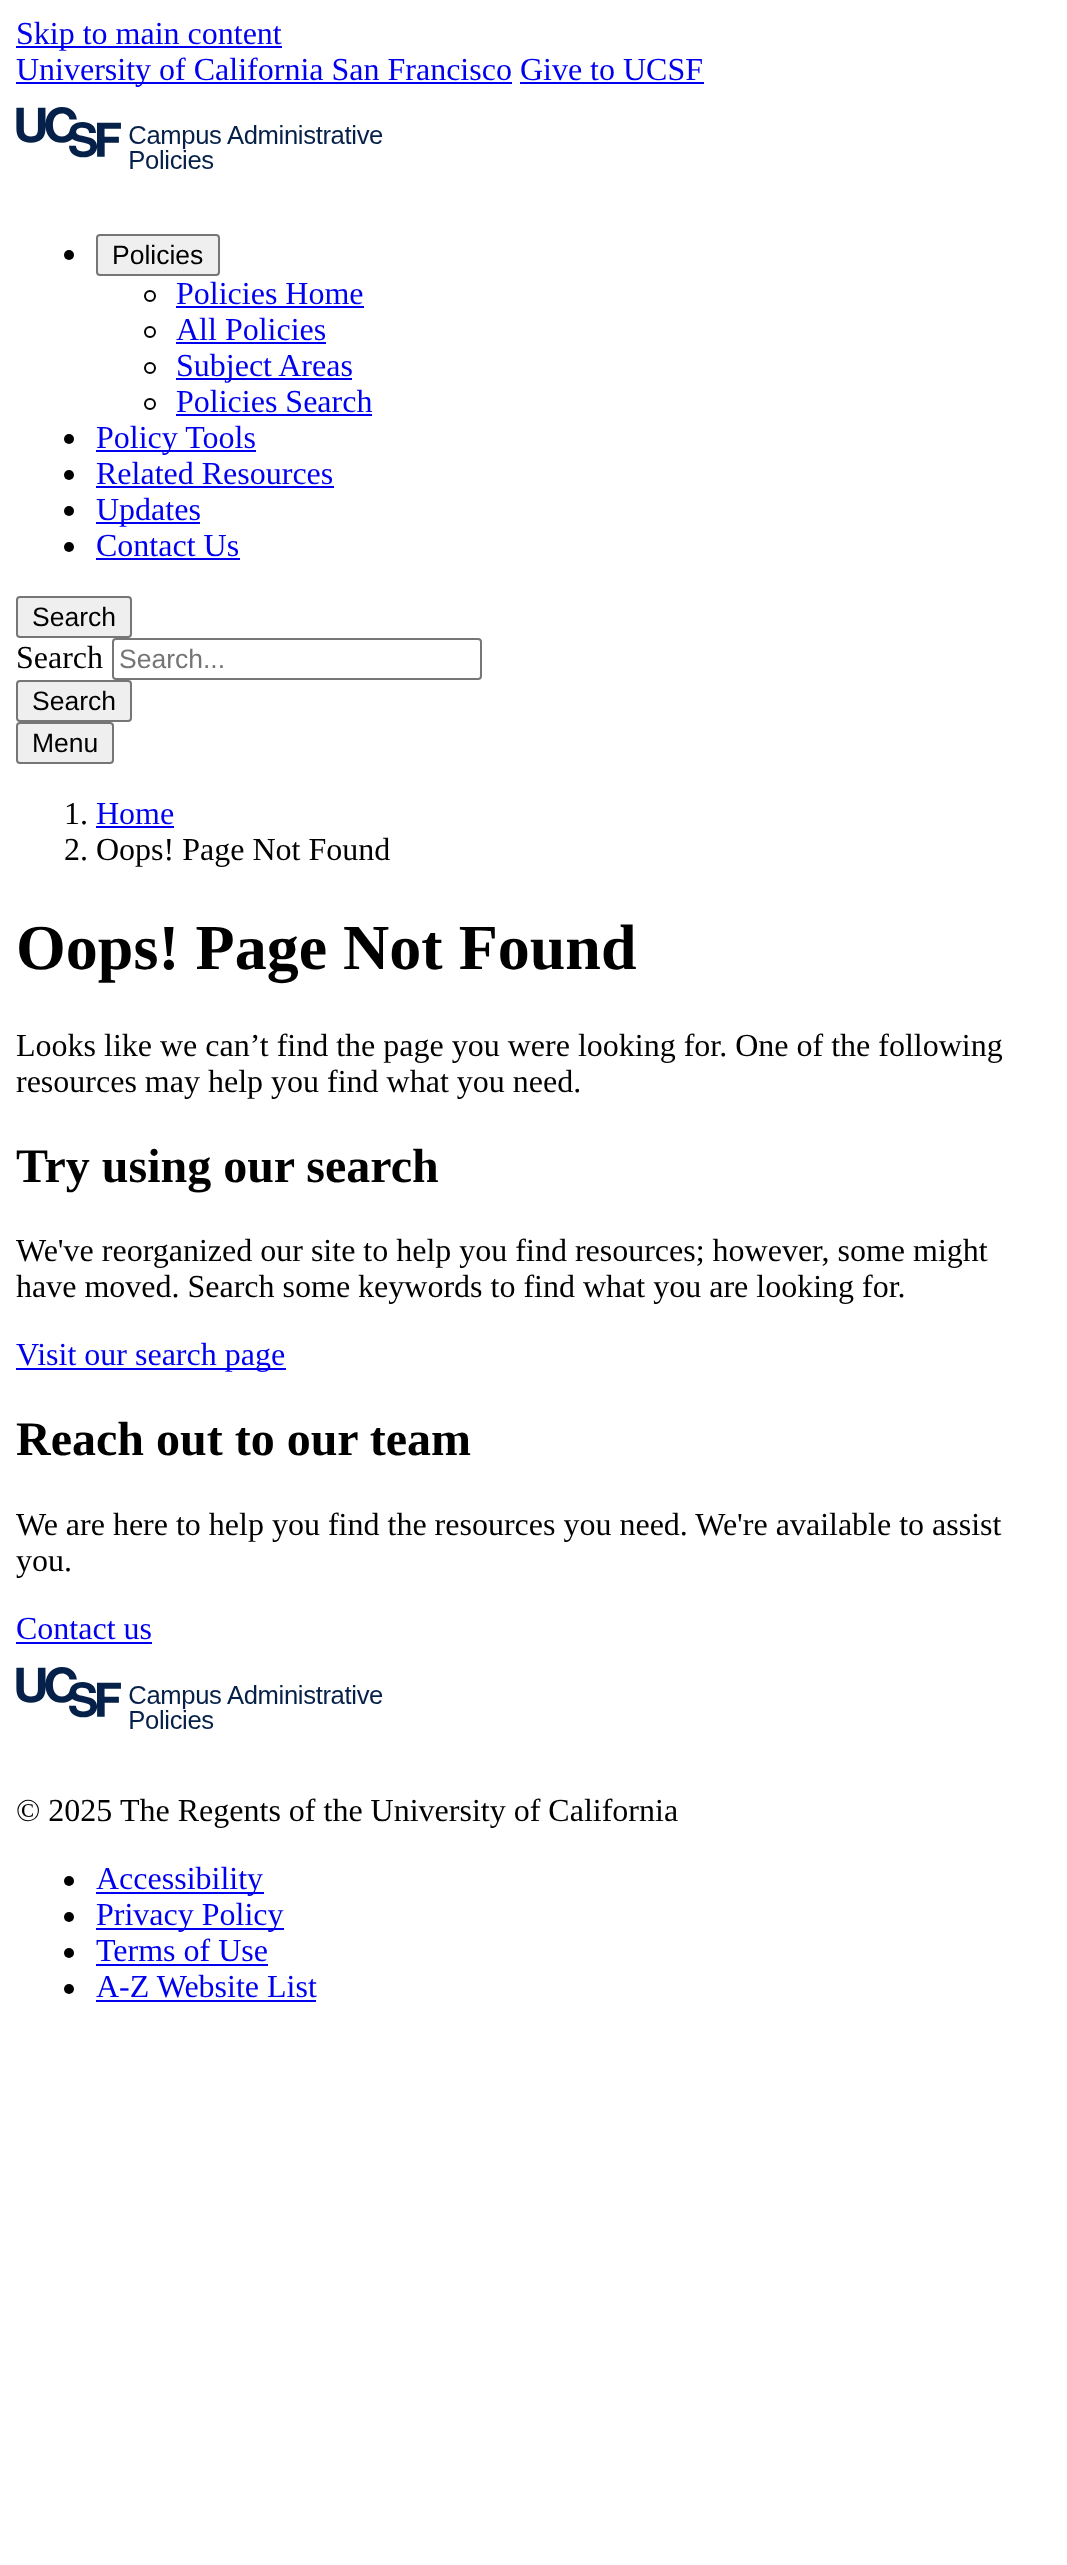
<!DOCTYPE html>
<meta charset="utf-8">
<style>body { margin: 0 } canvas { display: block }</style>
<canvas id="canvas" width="1067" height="2565"></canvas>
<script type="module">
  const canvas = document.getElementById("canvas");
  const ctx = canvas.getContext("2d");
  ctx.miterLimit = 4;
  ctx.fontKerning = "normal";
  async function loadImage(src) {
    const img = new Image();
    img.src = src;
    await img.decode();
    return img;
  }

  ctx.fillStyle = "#ffffff";
  ctx.fillRect(0, 0, 1067, 2565);
  ctx.fillStyle = "#0000ee";
  ctx.fillRect(16, 46, 266, 2);
  ctx.font = "32px Liberation Serif";
  ctx.fillText("Skip to main content", 16, 44);
  ctx.fillRect(16, 82, 496, 2);
  ctx.fillText("University of California San Francisco Give to UCSF", 16, 80);
  ctx.fillRect(520, 82, 184, 2);
  ctx.drawImage(await loadImage("img1.png"), 16, 107, 367, 62);
  ctx.fillStyle = "#000000";
  ctx.beginPath();
  ctx.arc(69, 255, 5, 0, Math.PI * 2);
  ctx.fill();
  ctx.fillStyle = "#efefef";
  ctx.beginPath();
  ctx.roundRect(97, 235, 122, 40, 3);
  ctx.fill();
  ctx.strokeStyle = "#767676";
  ctx.lineWidth = 2;
  ctx.stroke();
  ctx.font = "26.5px Liberation Sans";
  ctx.fillStyle = "#000000";
  ctx.fillText("Policies", 112, 264);
  ctx.beginPath();
  ctx.arc(150, 296, 5, 0, Math.PI * 2);
  ctx.strokeStyle = "#000000";
  ctx.stroke();
  ctx.font = "32px Liberation Serif";
  ctx.fillStyle = "#0000ee";
  ctx.fillText("Policies Home", 176, 304);
  ctx.fillRect(176, 306, 188, 2);
  ctx.beginPath();
  ctx.arc(150, 332, 5, 0, Math.PI * 2);
  ctx.stroke();
  ctx.fillText("All Policies", 176, 340);
  ctx.fillRect(176, 342, 150, 2);
  ctx.beginPath();
  ctx.arc(150, 368, 5, 0, Math.PI * 2);
  ctx.stroke();
  ctx.fillRect(176, 378, 176, 2);
  ctx.fillText("Subject Areas", 176, 376);
  ctx.beginPath();
  ctx.arc(150, 404, 5, 0, Math.PI * 2);
  ctx.stroke();
  ctx.fillText("Policies Search", 176, 412);
  ctx.fillRect(176, 414, 196, 2);
  ctx.fillStyle = "#000000";
  ctx.beginPath();
  ctx.arc(69, 439, 5, 0, Math.PI * 2);
  ctx.fill();
  ctx.fillStyle = "#0000ee";
  ctx.fillRect(96, 450, 160, 2);
  ctx.fillText("Policy Tools", 96, 448);
  ctx.fillStyle = "#000000";
  ctx.beginPath();
  ctx.arc(69, 475, 5, 0, Math.PI * 2);
  ctx.fill();
  ctx.fillStyle = "#0000ee";
  ctx.fillText("Related Resources", 96, 484);
  ctx.fillRect(96, 486, 238, 2);
  ctx.fillStyle = "#000000";
  ctx.beginPath();
  ctx.arc(69, 511, 5, 0, Math.PI * 2);
  ctx.fill();
  ctx.fillStyle = "#0000ee";
  ctx.fillRect(96, 522, 104, 2);
  ctx.fillText("Updates", 96, 520);
  ctx.fillStyle = "#000000";
  ctx.beginPath();
  ctx.arc(69, 547, 5, 0, Math.PI * 2);
  ctx.fill();
  ctx.fillStyle = "#0000ee";
  ctx.fillText("Contact Us", 96, 556);
  ctx.fillRect(96, 558, 144, 2);
  ctx.fillStyle = "#efefef";
  ctx.beginPath();
  ctx.roundRect(17, 597, 114, 40, 3);
  ctx.fill();
  ctx.strokeStyle = "#767676";
  ctx.stroke();
  ctx.font = "26.5px Liberation Sans";
  ctx.fillStyle = "#000000";
  ctx.fillText("Search", 32, 626);
  ctx.font = "32px Liberation Serif";
  ctx.fillText("Search", 16, 668);
  ctx.beginPath();
  ctx.roundRect(113, 639, 368, 40, 3);
  ctx.stroke();
  ctx.font = "26.5px Liberation Sans";
  ctx.fillStyle = "#757575";
  ctx.fillText("Search...", 119, 668);
  ctx.fillStyle = "#efefef";
  ctx.beginPath();
  ctx.roundRect(17, 681, 114, 40, 3);
  ctx.fill();
  ctx.stroke();
  ctx.fillStyle = "#000000";
  ctx.fillText("Search", 32, 710);
  ctx.fillStyle = "#efefef";
  ctx.beginPath();
  ctx.roundRect(17, 723, 96, 40, 3);
  ctx.fill();
  ctx.stroke();
  ctx.fillStyle = "#000000";
  ctx.fillText("Menu", 32, 752);
  ctx.font = "32px Liberation Serif";
  ctx.fillText("1.", 64, 824);
  ctx.fillStyle = "#0000ee";
  ctx.fillText("Home", 96, 824);
  ctx.fillRect(96, 826, 78, 2);
  ctx.fillStyle = "#000000";
  ctx.fillText("2. Oops! Page Not Found", 64, 860);
  ctx.font = "bold 64px Liberation Serif";
  ctx.fillText("Oops! Page Not Found", 16, 969);
  ctx.font = "32px Liberation Serif";
  ctx.fillText("Looks like we can’t find the page you were looking for. One of the following", 16, 1056);
  ctx.fillText("resources may help you find what you need.", 16, 1092);
  ctx.font = "bold 48px Liberation Serif";
  ctx.fillText("Try using our search", 16, 1182);
  ctx.font = "32px Liberation Serif";
  ctx.fillText("We've reorganized our site to help you find resources; however, some might", 16, 1261);
  ctx.fillText("have moved. Search some keywords to find what you are looking for.", 16, 1297);
  ctx.fillStyle = "#0000ee";
  ctx.fillRect(16, 1368, 270, 2);
  ctx.fillText("Visit our search page", 16, 1365);
  ctx.font = "bold 48px Liberation Serif";
  ctx.fillStyle = "#000000";
  ctx.fillText("Reach out to our team", 16, 1455);
  ctx.font = "32px Liberation Serif";
  ctx.fillText("We are here to help you find the resources you need. We're available to assist", 16, 1535);
  ctx.fillText("you.", 16, 1571);
  ctx.fillStyle = "#0000ee";
  ctx.fillText("Contact us", 16, 1639);
  ctx.fillRect(16, 1642, 136, 2);
  ctx.drawImage(await loadImage("img1.png"), 16, 1667, 367, 62);
  ctx.fillStyle = "#000000";
  ctx.fillText("© 2025", 16, 1821);
  ctx.fillText("The Regents of the University of California", 120, 1821);
  ctx.beginPath();
  ctx.arc(69, 1881, 5, 0, Math.PI * 2);
  ctx.fill();
  ctx.fillStyle = "#0000ee";
  ctx.fillRect(96, 1892, 168, 2);
  ctx.fillText("Accessibility", 96, 1889);
  ctx.fillStyle = "#000000";
  ctx.beginPath();
  ctx.arc(69, 1917, 5, 0, Math.PI * 2);
  ctx.fill();
  ctx.fillStyle = "#0000ee";
  ctx.fillRect(96, 1928, 188, 2);
  ctx.fillText("Privacy Policy", 96, 1925);
  ctx.fillStyle = "#000000";
  ctx.beginPath();
  ctx.arc(69, 1953, 5, 0, Math.PI * 2);
  ctx.fill();
  ctx.fillStyle = "#0000ee";
  ctx.fillText("Terms of Use", 96, 1961);
  ctx.fillRect(96, 1964, 172, 2);
  ctx.fillStyle = "#000000";
  ctx.beginPath();
  ctx.arc(69, 1989, 5, 0, Math.PI * 2);
  ctx.fill();
  ctx.fillStyle = "#0000ee";
  ctx.fillText("A-Z Website List", 96, 1997);
  ctx.fillRect(96, 2000, 220, 2);
</script>
